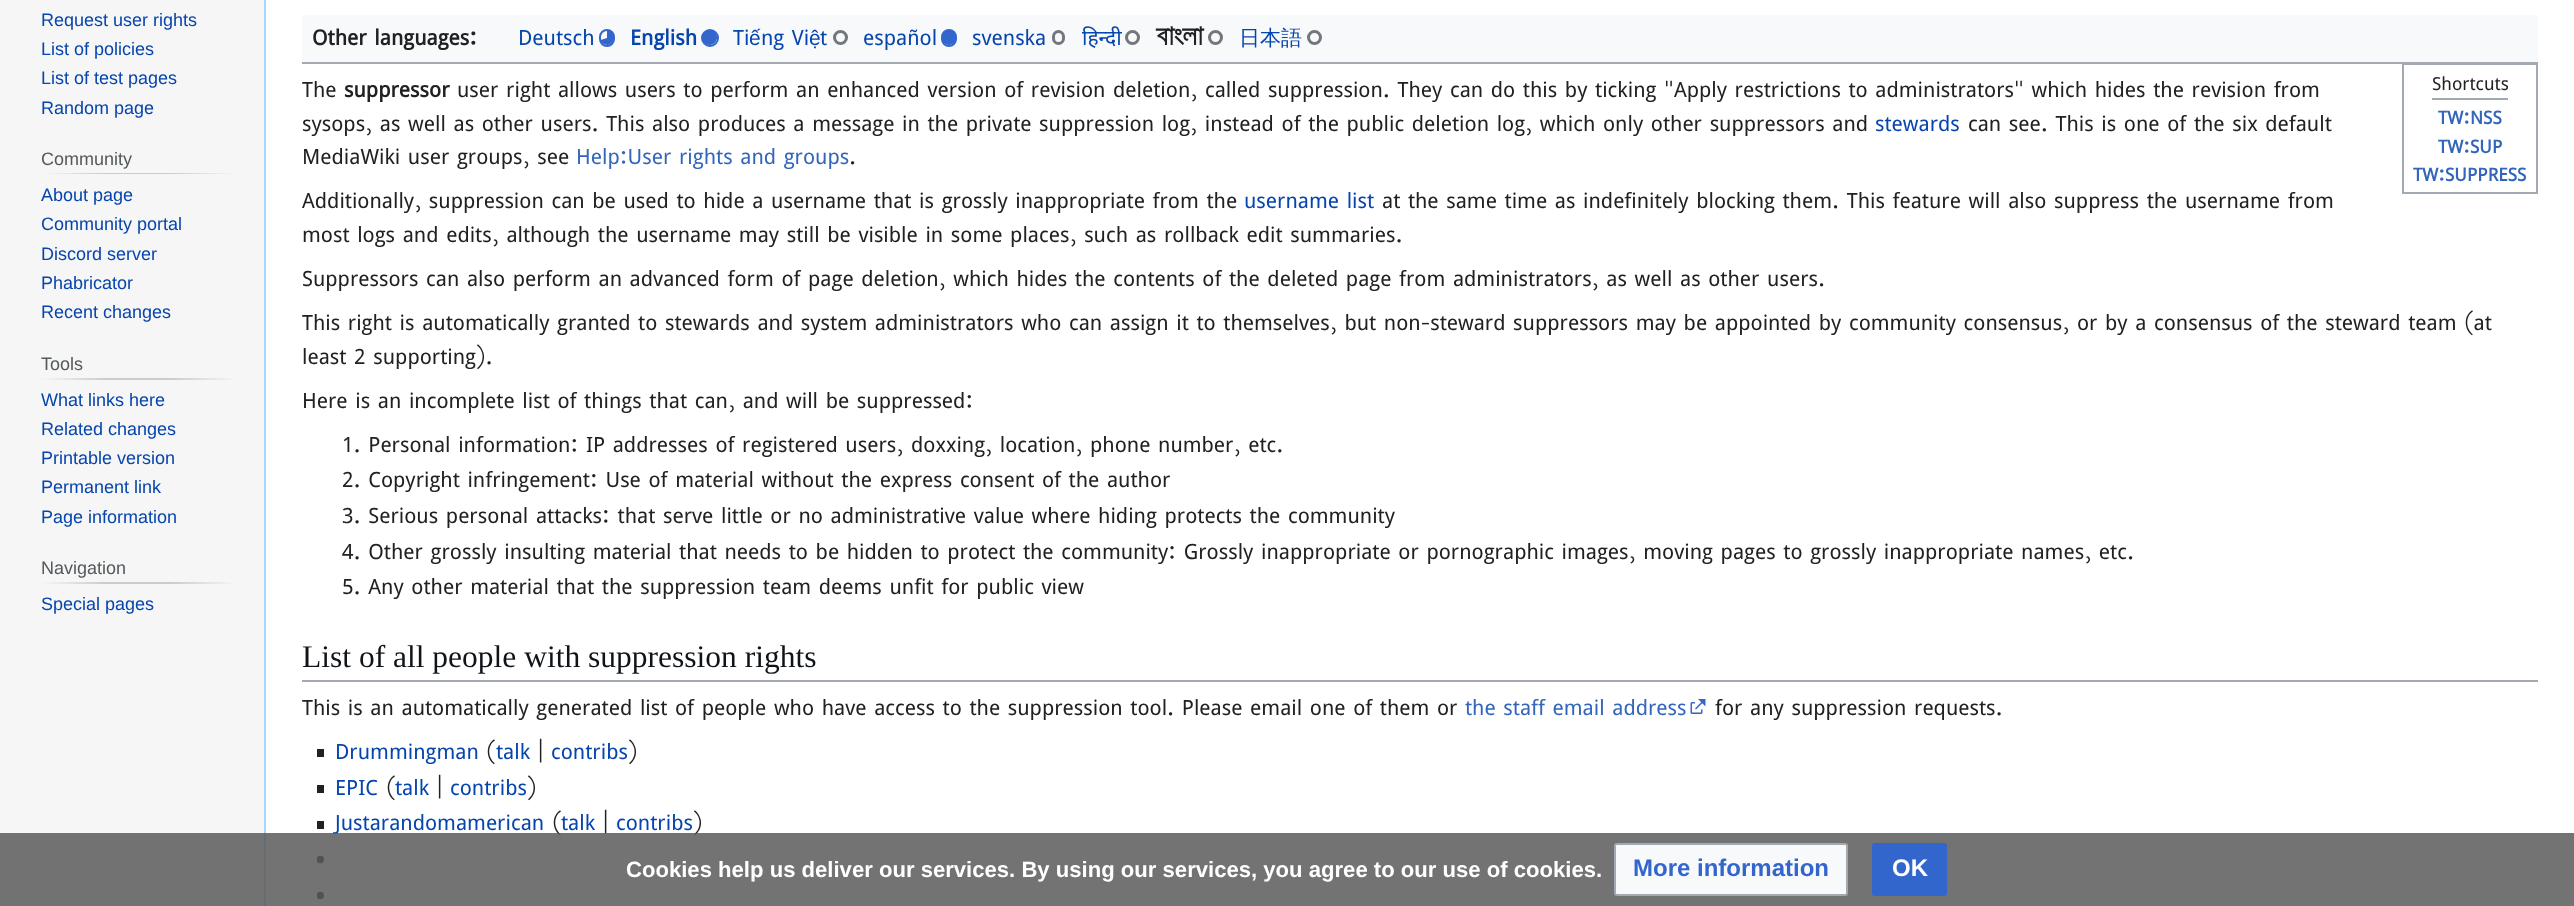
<!DOCTYPE html>
<meta charset="utf-8">
<style>body { margin: 0 } canvas { display: block }</style>
<canvas id="canvas" width="2574" height="906"></canvas>
<script type="module">
  const canvas = document.getElementById("canvas");
  const ctx = canvas.getContext("2d");
  ctx.miterLimit = 4;
  ctx.fontKerning = "normal";
  async function loadImage(src) {
    const img = new Image();
    img.src = src;
    await img.decode();
    return img;
  }
  let gradient;

  ctx.fillStyle = "#f6f6f6";
  ctx.fillRect(0, 0, 2574, 906);
  ctx.font = "18px Liberation Sans";
  ctx.fillStyle = "#0645ad";
  ctx.fillText("Request user rights", 41, 26);
  ctx.fillText("List of policies", 41, 55);
  ctx.fillText("List of test pages", 41, 84);
  ctx.fillText("Random page", 41, 114);
  gradient = ctx.createLinearGradient(41, 173, 237, 173);
  gradient.addColorStop(0, "#f6f6f6");
  gradient.addColorStop(0.33, "#c8ccd1");
  gradient.addColorStop(0.66, "#c8ccd1");
  gradient.addColorStop(1, "#f6f6f6");
  ctx.fillStyle = gradient;
  ctx.fillRect(41, 173, 196, 1);
  ctx.fillStyle = "#54595d";
  ctx.fillText("Community", 41, 165);
  ctx.fillStyle = "#0645ad";
  ctx.fillText("About page", 41, 201);
  ctx.fillText("Community portal", 41, 230);
  ctx.fillText("Discord server", 41, 260);
  ctx.fillText("Phabricator", 41, 289);
  ctx.fillText("Recent changes", 41, 318);
  gradient = ctx.createLinearGradient(41, 379, 237, 379);
  gradient.addColorStop(0, "#f6f6f6");
  gradient.addColorStop(0.33, "#c8ccd1");
  gradient.addColorStop(0.66, "#c8ccd1");
  gradient.addColorStop(1, "#f6f6f6");
  ctx.fillStyle = gradient;
  ctx.fillRect(41, 378, 196, 2);
  ctx.fillStyle = "#54595d";
  ctx.fillText("Tools", 41, 370);
  ctx.fillStyle = "#0645ad";
  ctx.fillText("What links here", 41, 406);
  ctx.fillText("Related changes", 41, 435);
  ctx.fillText("Printable version", 41, 464);
  ctx.fillText("Permanent link", 41, 493);
  ctx.fillText("Page information", 41, 523);
  gradient = ctx.createLinearGradient(41, 583, 237, 583);
  gradient.addColorStop(0, "#f6f6f6");
  gradient.addColorStop(0.33, "#c8ccd1");
  gradient.addColorStop(0.66, "#c8ccd1");
  gradient.addColorStop(1, "#f6f6f6");
  ctx.fillStyle = gradient;
  ctx.fillRect(41, 582, 196, 2);
  ctx.fillStyle = "#54595d";
  ctx.fillText("Navigation", 41, 574);
  ctx.fillStyle = "#0645ad";
  ctx.fillText("Special pages", 41, 610);
  ctx.fillStyle = "#ffffff";
  ctx.fillRect(266, 0, 2308, 906);
  ctx.fillStyle = "#a7d7f9";
  ctx.fillRect(264, 0, 2, 906);
  ctx.fillStyle = "#f8f9fa";
  ctx.fillRect(302, 15, 2236, 47);
  ctx.fillStyle = "#a2a9b1";
  ctx.fillRect(302, 62, 2236, 2);
  ctx.font = "bold 21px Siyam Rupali";
  ctx.fillStyle = "#202122";
  ctx.fillText("Other languages:", 312, 45);
  ctx.font = "21px Siyam Rupali";
  ctx.fillStyle = "#0645ad";
  ctx.fillText("Deutsch", 518, 45);
  ctx.fillStyle = "#3366cc";
  ctx.beginPath();
  ctx.moveTo(607, 38);
  ctx.lineTo(600.5, 40);
  ctx.bezierCurveTo(601, 42, 602.5, 44, 605, 44.5);
  ctx.bezierCurveTo(615, 48, 618, 30, 607, 30);
  ctx.closePath();
  ctx.fill();
  ctx.beginPath();
  ctx.roundRect(600, 30, 14, 16, 7);
  ctx.strokeStyle = "#3366cc";
  ctx.lineWidth = 2;
  ctx.stroke();
  ctx.font = "bold 21px Siyam Rupali";
  ctx.fillStyle = "#0645ad";
  ctx.fillText("English", 630, 45);
  ctx.drawImage(await loadImage("img1.png"), 703, 31, 14, 14);
  ctx.beginPath();
  ctx.arc(710, 38, 8, 0, Math.PI * 2);
  ctx.stroke();
  ctx.font = "21px Siyam Rupali";
  ctx.fillText("Ti", 733, 45);
  ctx.font = "21px Liberation Sans";
  ctx.fillText("ế", 749, 45);
  ctx.font = "21px Siyam Rupali";
  ctx.fillText("ng Vi", 761, 45);
  ctx.font = "21px Liberation Sans";
  ctx.fillText("ệ", 809, 45);
  ctx.font = "21px Siyam Rupali";
  ctx.fillText("t", 820, 45);
  ctx.beginPath();
  ctx.arc(840.5, 37.5, 6, 0, Math.PI * 2);
  ctx.strokeStyle = "#72777d";
  ctx.lineWidth = 3;
  ctx.stroke();
  ctx.fillText("español", 863, 45);
  ctx.fillStyle = "#3366cc";
  ctx.beginPath();
  ctx.moveTo(949, 30);
  ctx.bezierCurveTo(939.5, 30, 939.5, 45, 949, 45);
  ctx.bezierCurveTo(958.5, 45, 958.5, 30, 949, 30);
  ctx.closePath();
  ctx.fill();
  ctx.beginPath();
  ctx.roundRect(942, 30, 14, 16, 7);
  ctx.strokeStyle = "#3366cc";
  ctx.lineWidth = 2;
  ctx.stroke();
  ctx.fillStyle = "#0645ad";
  ctx.fillText("svenska", 972, 45);
  ctx.beginPath();
  ctx.roundRect(1053.5, 31.5, 10, 12, 5);
  ctx.strokeStyle = "#72777d";
  ctx.lineWidth = 3;
  ctx.stroke();
  ctx.font = "21px Noto Sans";
  ctx.fillText("हिन्दी", 1082, 45);
  ctx.beginPath();
  ctx.arc(1132.5, 37.5, 6, 0, Math.PI * 2);
  ctx.stroke();
  ctx.font = "bold 21px Siyam Rupali";
  ctx.fillStyle = "#202122";
  ctx.fillText("বাংলা", 1156, 45);
  ctx.beginPath();
  ctx.arc(1215.5, 37.5, 6, 0, Math.PI * 2);
  ctx.stroke();
  ctx.font = "500 21px WenQuanYi Zen Hei";
  ctx.fillStyle = "#0645ad";
  ctx.fillText("日本語", 1239, 45);
  ctx.beginPath();
  ctx.arc(1314.5, 37.5, 6, 0, Math.PI * 2);
  ctx.stroke();
  ctx.font = "21px Siyam Rupali";
  ctx.fillStyle = "#202122";
  ctx.fillText("The", 302, 97);
  ctx.font = "bold 21px Siyam Rupali";
  ctx.fillText("suppressor", 344, 97);
  ctx.font = "21px Siyam Rupali";
  ctx.fillText("user right allows users to perform an enhanced version of revision deletion, called suppression. They can do this by ticking \"Apply restrictions to administrators\" which hides the revision from", 457, 97);
  ctx.fillText("sysops, as well as other users. This also produces a message in the private suppression log, instead of the public deletion log, which only other suppressors and", 302, 131);
  ctx.fillStyle = "#0645ad";
  ctx.fillText("stewards", 1875, 131);
  ctx.fillStyle = "#202122";
  ctx.fillText("can see. This is one of the six default", 1968, 131);
  ctx.fillText("MediaWiki user groups, see", 302, 164);
  ctx.fillStyle = "#3366bb";
  ctx.fillText("Help:User rights and groups", 576, 164);
  ctx.fillStyle = "#202122";
  ctx.fillText(".", 849, 164);
  ctx.strokeStyle = "#a2a9b1";
  ctx.lineWidth = 2;
  ctx.strokeRect(2403, 64, 134, 129);
  ctx.fillStyle = "#a2a9b1";
  ctx.fillRect(2432, 98, 76, 2);
  ctx.font = "18px Siyam Rupali";
  ctx.fillStyle = "#202122";
  ctx.fillText("Shortcuts", 2432, 90);
  ctx.font = "bold 18px Siyam Rupali";
  ctx.fillStyle = "#3366bb";
  ctx.fillText("TW:NSS", 2438, 124);
  ctx.fillText("TW:SUP", 2438, 153);
  ctx.fillText("TW:SUPPRESS", 2413, 181);
  ctx.font = "21px Siyam Rupali";
  ctx.fillStyle = "#202122";
  ctx.fillText("Additionally, suppression can be used to hide a username that is grossly inappropriate from the", 302, 208);
  ctx.fillStyle = "#0645ad";
  ctx.fillText("username list", 1244, 208);
  ctx.fillStyle = "#202122";
  ctx.fillText("at the same time as indefinitely blocking them. This feature will also suppress the username from", 1382, 208);
  ctx.fillText("most logs and edits, although the username may still be visible in some places, such as rollback edit summaries.", 302, 242);
  ctx.fillText("Suppressors can also perform an advanced form of page deletion, which hides the contents of the deleted page from administrators, as well as other users.", 302, 286);
  ctx.fillText("This right is automatically granted to stewards and system administrators who can assign it to themselves, but non-steward suppressors may be appointed by community consensus, or by a consensus of the steward team (at", 302, 330);
  ctx.fillText("least 2 supporting).", 302, 364);
  ctx.fillText("Here is an incomplete list of things that can, and will be suppressed:", 302, 408);
  ctx.fillText("1. Personal information: IP addresses of registered users, doxxing, location, phone number, etc.", 342, 452);
  ctx.fillText("2. Copyright infringement: Use of material without the express consent of the author", 342, 487);
  ctx.fillText("3. Serious personal attacks: that serve little or no administrative value where hiding protects the community", 342, 523);
  ctx.fillText("4. Other grossly insulting material that needs to be hidden to protect the community: Grossly inappropriate or pornographic images, moving pages to grossly inappropriate names, etc.", 342, 559);
  ctx.fillText("5. Any other material that the suppression team deems unfit for public view", 342, 594);
  ctx.fillStyle = "#a2a9b1";
  ctx.fillRect(302, 680, 2236, 2);
  ctx.font = "31.5px Liberation Serif";
  ctx.fillStyle = "#101418";
  ctx.fillText("List of all people with suppression rights", 302, 667);
  ctx.font = "21px Siyam Rupali";
  ctx.fillStyle = "#202122";
  ctx.fillText("This is an automatically generated list of people who have access to the suppression tool. Please email one of them or", 302, 715);
  ctx.fillStyle = "#3366bb";
  ctx.fillText("the staff email address", 1465, 715);
  ctx.drawImage(await loadImage("img2.png"), 1690, 699, 16, 15);
  ctx.fillStyle = "#202122";
  ctx.fillText("for any suppression requests.", 1715, 715);
  ctx.fillRect(317, 749, 7, 8);
  ctx.fillStyle = "#0645ad";
  ctx.fillText("Drummingman", 335, 759);
  ctx.fillStyle = "#202122";
  ctx.fillText("(", 486, 759);
  ctx.fillStyle = "#0645ad";
  ctx.fillText("talk", 496, 759);
  ctx.fillStyle = "#202122";
  ctx.fillText("|", 538, 759);
  ctx.fillStyle = "#0645ad";
  ctx.fillText("contribs", 551, 759);
  ctx.fillStyle = "#202122";
  ctx.fillText(")", 628, 759);
  ctx.fillRect(317, 785, 7, 8);
  ctx.fillStyle = "#0645ad";
  ctx.fillText("EPIC", 335, 795);
  ctx.fillStyle = "#202122";
  ctx.fillText("(", 386, 795);
  ctx.fillStyle = "#0645ad";
  ctx.fillText("talk", 395, 795);
  ctx.fillStyle = "#202122";
  ctx.fillText("|", 437, 795);
  ctx.fillStyle = "#0645ad";
  ctx.fillText("contribs", 450, 795);
  ctx.fillStyle = "#202122";
  ctx.fillText(")", 527, 795);
  ctx.fillRect(317, 821, 7, 8);
  ctx.fillStyle = "#0645ad";
  ctx.fillText("Justarandomamerican", 335, 830);
  ctx.fillStyle = "#202122";
  ctx.fillText("(", 552, 830);
  ctx.fillStyle = "#0645ad";
  ctx.fillText("talk", 561, 830);
  ctx.fillStyle = "#202122";
  ctx.fillText("|", 603, 830);
  ctx.fillStyle = "#0645ad";
  ctx.fillText("contribs", 616, 830);
  ctx.fillStyle = "#202122";
  ctx.fillText(")", 693, 830);
  ctx.drawImage(await loadImage("img3.png"), 317, 855, 7, 9);
  ctx.drawImage(await loadImage("img3.png"), 317, 891, 7, 9);
  ctx.fillStyle = "rgba(90, 90, 90, 0.85)";
  ctx.fillRect(0, 833, 2574, 73);
  ctx.font = "bold 22.1px Liberation Sans";
  ctx.fillStyle = "#ffffff";
  ctx.fillText("Cookies help us deliver our services. By using our services, you agree to our use of cookies.", 626, 877);
  ctx.fillStyle = "#f8f9fa";
  ctx.beginPath();
  ctx.roundRect(1615, 844, 232, 51, 2);
  ctx.fill();
  ctx.stroke();
  ctx.font = "bold 24px Liberation Sans";
  ctx.fillStyle = "#3366cc";
  ctx.fillText("More information", 1633, 876);
  ctx.beginPath();
  ctx.roundRect(1873, 844, 73, 51, 2);
  ctx.fill();
  ctx.strokeStyle = "#3366cc";
  ctx.stroke();
  ctx.fillStyle = "#ffffff";
  ctx.fillText("OK", 1892, 876);
</script>
